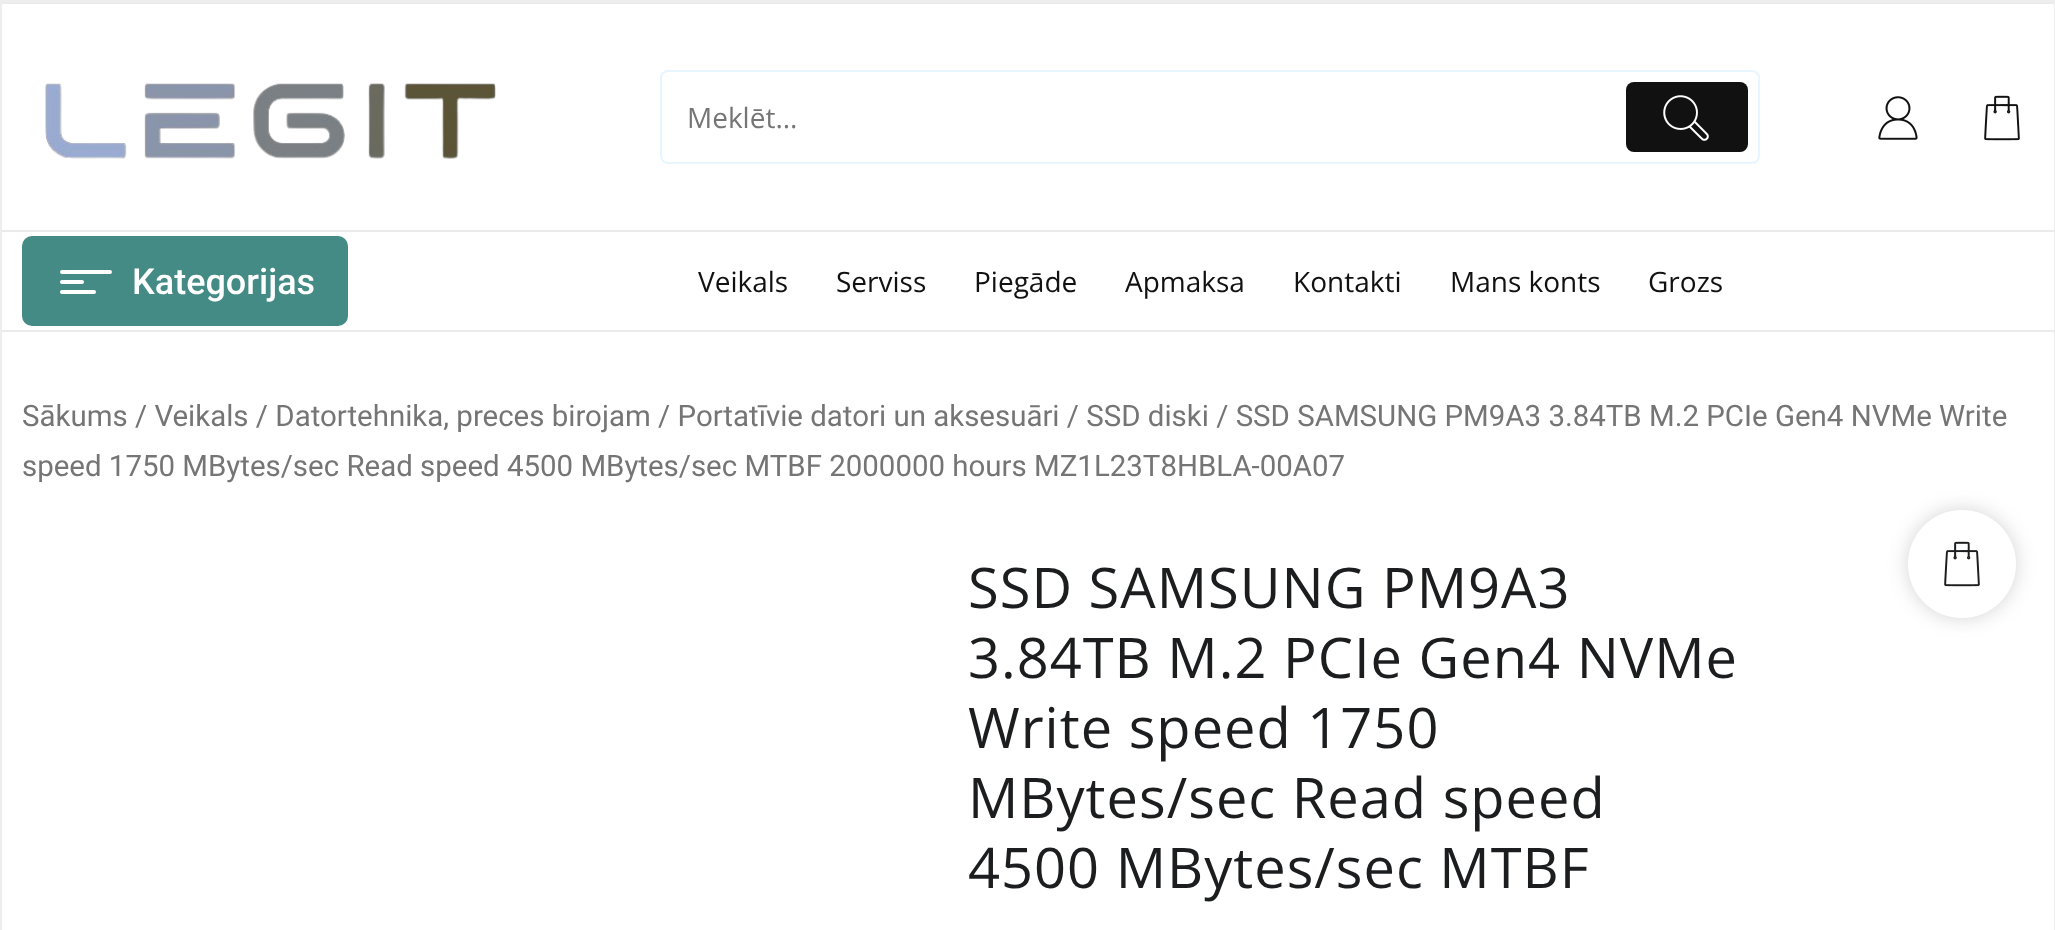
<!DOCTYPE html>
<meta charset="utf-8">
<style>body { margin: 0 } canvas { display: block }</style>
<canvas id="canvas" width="2055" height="930"></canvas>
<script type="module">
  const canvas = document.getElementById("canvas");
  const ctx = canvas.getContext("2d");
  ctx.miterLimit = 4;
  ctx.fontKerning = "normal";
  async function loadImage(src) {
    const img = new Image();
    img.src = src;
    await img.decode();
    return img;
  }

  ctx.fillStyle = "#ffffff";
  ctx.fillRect(0, 0, 2055, 930);
  ctx.strokeStyle = "#eeeeee";
  ctx.lineWidth = 2;
  ctx.strokeRect(1, 1, 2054, 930);
  ctx.fillStyle = "#ebebeb";
  ctx.fillRect(2, 2, 2052, 2);
  ctx.fillRect(2, 230, 2052, 2);
  ctx.drawImage(await loadImage("img1.png"), 45, 83, 451, 76);
  ctx.beginPath();
  ctx.roundRect(661, 71, 1098, 92, 7);
  ctx.strokeStyle = "#e7f5ff";
  ctx.stroke();
  ctx.font = "28px Open Sans";
  ctx.fillStyle = "#757575";
  ctx.fillText("Meklēt...", 687, 128);
  ctx.fillStyle = "#111111";
  ctx.beginPath();
  ctx.roundRect(1626, 82, 122, 70, 8);
  ctx.fill();
  ctx.drawImage(await loadImage("img2.png"), 1663, 95, 46, 46);
  ctx.drawImage(await loadImage("img3.png"), 1878, 96, 40, 44);
  ctx.drawImage(await loadImage("img4.png"), 1984, 95, 36, 46);
  ctx.fillStyle = "#ebebeb";
  ctx.fillRect(2, 330, 2052, 2);
  ctx.fillStyle = "#448a85";
  ctx.beginPath();
  ctx.roundRect(22, 236, 326, 90, 10);
  ctx.fill();
  ctx.fillStyle = "#ffffff";
  ctx.beginPath();
  ctx.roundRect(60, 270, 52, 4, 2);
  ctx.fill();
  ctx.beginPath();
  ctx.roundRect(60, 280, 24, 4, 2);
  ctx.fill();
  ctx.beginPath();
  ctx.roundRect(60, 290, 36, 4, 2);
  ctx.fill();
  ctx.font = "500 36px Roboto";
  ctx.fillText("Kategorijas", 132, 294);
  ctx.font = "28px Open Sans";
  ctx.fillStyle = "#111111";
  ctx.fillText("Veikals", 698, 292);
  ctx.fillText("Serviss", 836, 292);
  ctx.fillText("Piegāde", 974, 292);
  ctx.fillText("Apmaksa", 1125, 292);
  ctx.fillText("Kontakti", 1293, 292);
  ctx.fillText("Mans konts", 1450, 292);
  ctx.fillText("Grozs", 1648, 292);
  ctx.font = "29.45px Roboto";
  ctx.fillStyle = "#757575";
  ctx.fillText("Sākums / Veikals / Datortehnika, preces birojam / Portatīvie datori un aksesuāri / SSD diski / SSD SAMSUNG PM9A3 3.84TB M.2 PCIe Gen4 NVMe Write", 22, 426);
  ctx.fillText("speed 1750 MBytes/sec Read speed 4500 MBytes/sec MTBF 2000000 hours MZ1L23T8HBLA-00A07", 22, 476);
  ctx.letterSpacing = "1px";
  ctx.font = "56px Open Sans";
  ctx.fillStyle = "#1c1d1e";
  ctx.fillText("SSD SAMSUNG PM9A3", 968, 608);
  ctx.fillText("3.84TB M.2 PCIe Gen4 NVMe", 968, 678);
  ctx.fillText("Write speed 1750", 968, 748);
  ctx.fillText("MBytes/sec Read speed", 968, 818);
  ctx.fillText("4500 MBytes/sec MTBF", 968, 888);
  ctx.fillStyle = "rgba(183, 183, 183, 0.6)";
  ctx.filter = "blur(10px)";
  ctx.beginPath();
  ctx.roundRect(1908, 510, 108, 108, 54);
  ctx.fill();
  ctx.filter = "none";
  ctx.fillStyle = "#ffffff";
  ctx.beginPath();
  ctx.arc(1962, 564, 54, 0, Math.PI * 2);
  ctx.fill();
  ctx.drawImage(await loadImage("img5.png"), 1944, 541, 36, 46);
</script>
